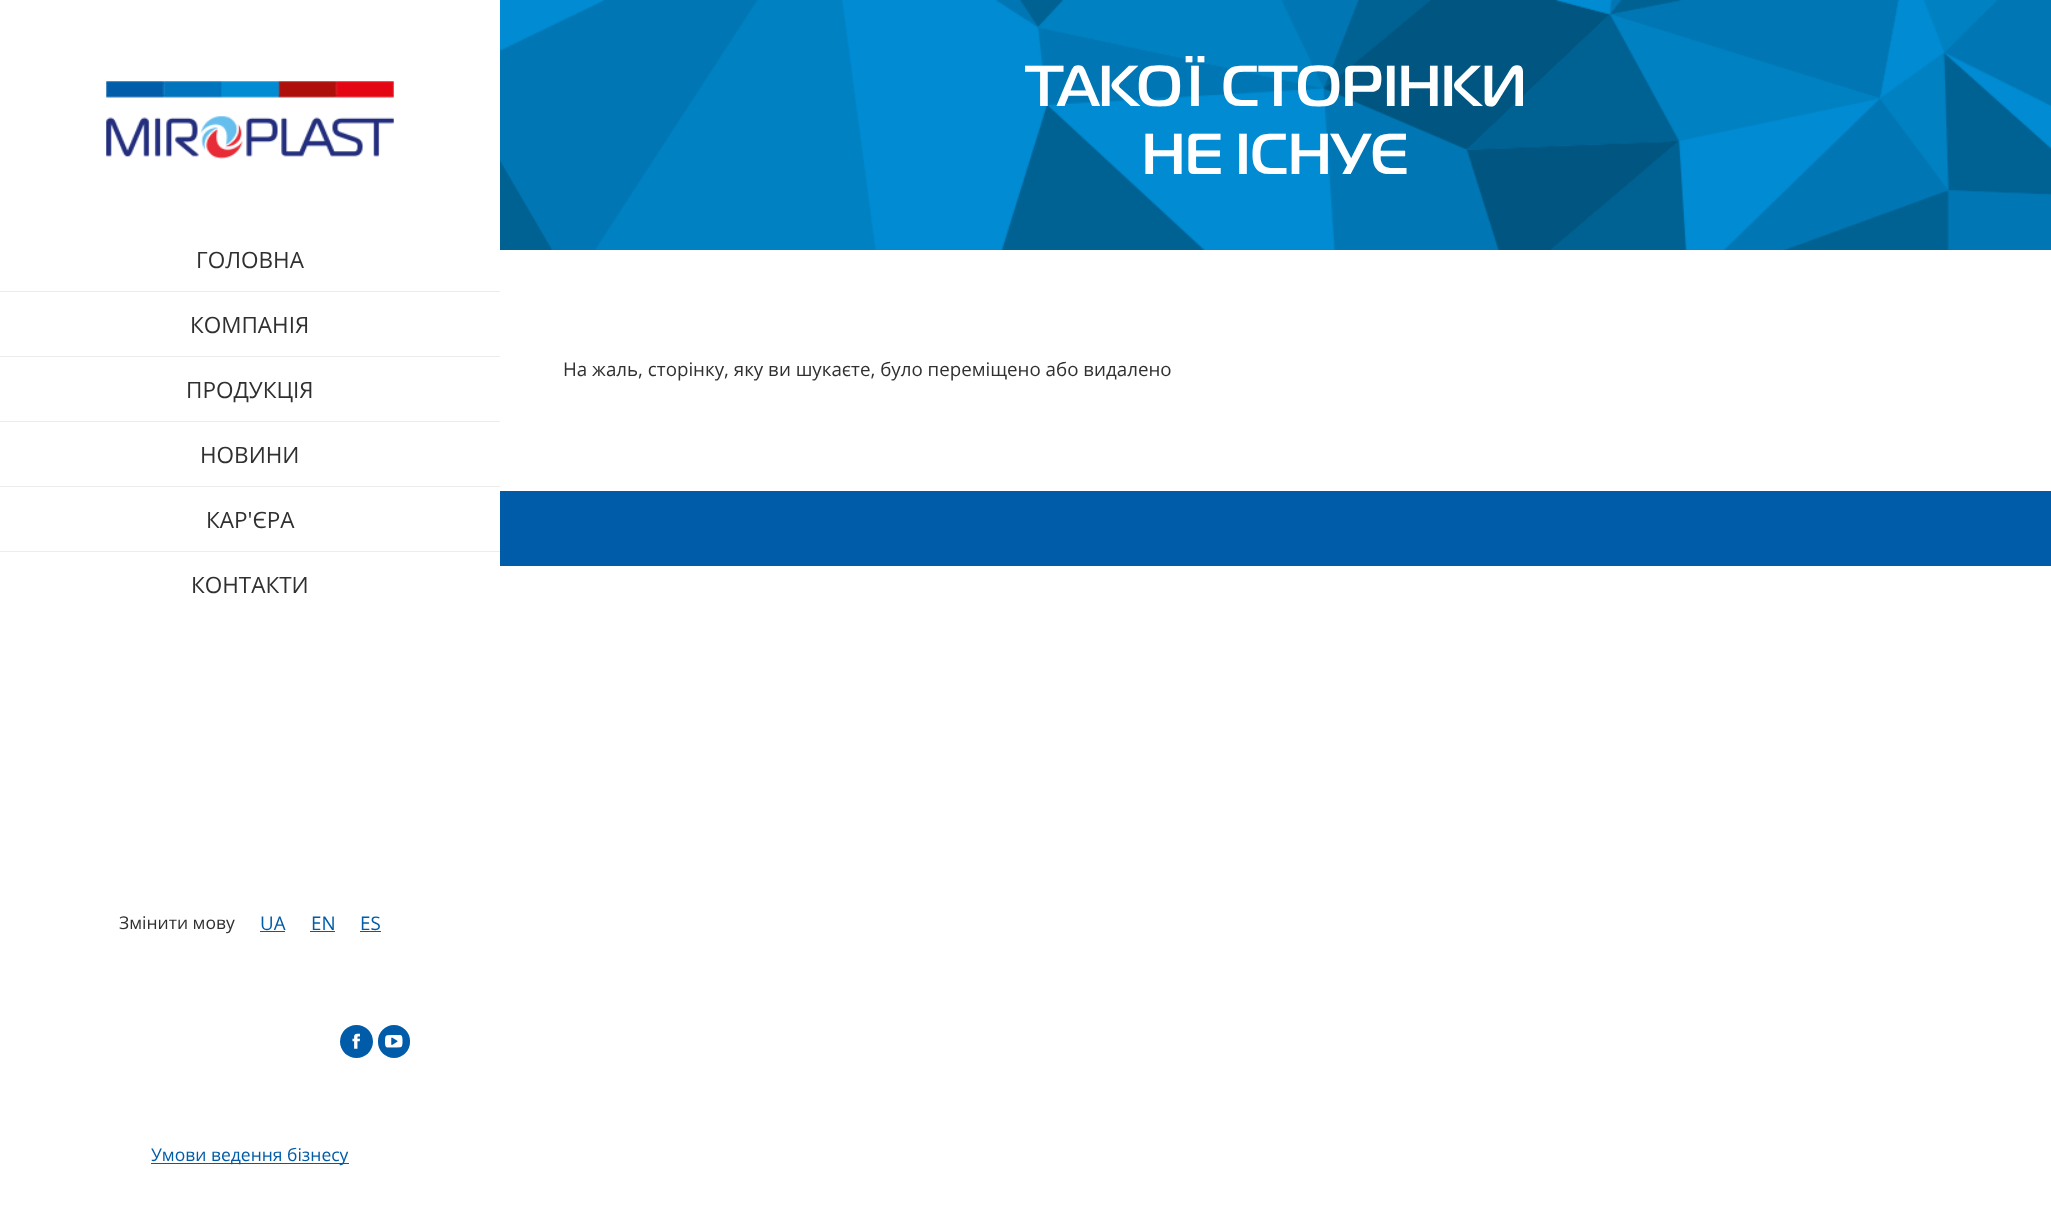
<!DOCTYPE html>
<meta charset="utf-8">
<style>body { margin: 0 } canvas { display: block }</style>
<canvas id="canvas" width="2051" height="1210"></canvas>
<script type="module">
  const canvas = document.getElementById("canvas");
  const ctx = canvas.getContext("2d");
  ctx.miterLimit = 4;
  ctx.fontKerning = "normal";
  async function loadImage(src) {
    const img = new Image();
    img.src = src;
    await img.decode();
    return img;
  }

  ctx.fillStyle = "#ffffff";
  ctx.fillRect(0, 0, 2051, 1210);
  ctx.drawImage(await loadImage("img1.png"), 500, 0, 1551, 250);
  ctx.save();
  ctx.beginPath();
  ctx.rect(1025, 45, 501, 160);
  ctx.clip();
  ctx.font = "bold 57.5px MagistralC";
  ctx.fillText("ТАКОЇ СТОРІНКИ", 1025, 106);
  ctx.restore();
  ctx.font = "bold 57.5px MagistralC";
  ctx.fillText("НЕ ІСНУЄ", 1142, 174);
  ctx.drawImage(await loadImage("img2.png"), 106, 81, 288, 78);
  ctx.font = "22.5px Open Sans";
  ctx.fillStyle = "#303030";
  ctx.fillText("ГОЛОВНА", 196, 268);
  ctx.fillStyle = "#ececec";
  ctx.fillRect(0, 291, 500, 1);
  ctx.fillStyle = "#303030";
  ctx.fillText("КОМПАНІЯ", 190, 333);
  ctx.fillStyle = "#ececec";
  ctx.fillRect(0, 356, 500, 1);
  ctx.fillStyle = "#303030";
  ctx.fillText("ПРОДУКЦІЯ", 186, 398);
  ctx.fillStyle = "#ececec";
  ctx.fillRect(0, 421, 500, 1);
  ctx.fillStyle = "#303030";
  ctx.fillText("НОВИНИ", 200, 463);
  ctx.fillStyle = "#ececec";
  ctx.fillRect(0, 486, 500, 1);
  ctx.fillStyle = "#303030";
  ctx.fillText("КАР'ЄРА", 206, 528);
  ctx.fillStyle = "#ececec";
  ctx.fillRect(0, 551, 500, 1);
  ctx.fillStyle = "#303030";
  ctx.fillText("КОНТАКТИ", 191, 593);
  ctx.font = "17.5px Open Sans";
  ctx.fillText("Змінити мову", 119, 929);
  ctx.font = "18.75px Open Sans";
  ctx.fillStyle = "#005ca9";
  ctx.fillText("UA", 260, 930);
  ctx.fillRect(260, 931, 25, 1);
  ctx.fillText("EN", 311, 930);
  ctx.fillRect(310, 931, 25, 1);
  ctx.fillText("ES", 360, 930);
  ctx.fillRect(360, 931, 21, 1);
  ctx.beginPath();
  ctx.arc(356.5, 1041.5, 16.5, 0, Math.PI * 2);
  ctx.fill();
  ctx.drawImage(await loadImage("img3.png"), 352, 1033, 8, 16);
  ctx.beginPath();
  ctx.roundRect(378, 1025, 32, 33, 16);
  ctx.fill();
  ctx.drawImage(await loadImage("img4.png"), 385, 1035, 18, 13);
  ctx.fillRect(151, 1163, 198, 1);
  ctx.font = "17.5px Open Sans";
  ctx.fillText("Умови ведення бізнесу", 151, 1161);
  ctx.font = "18.75px Open Sans";
  ctx.fillStyle = "#303030";
  ctx.fillText("На жаль, сторінку, яку ви шукаєте, було переміщено або видалено", 563, 376);
  ctx.fillStyle = "#005ca9";
  ctx.fillRect(500, 491, 1551, 75);
</script>
